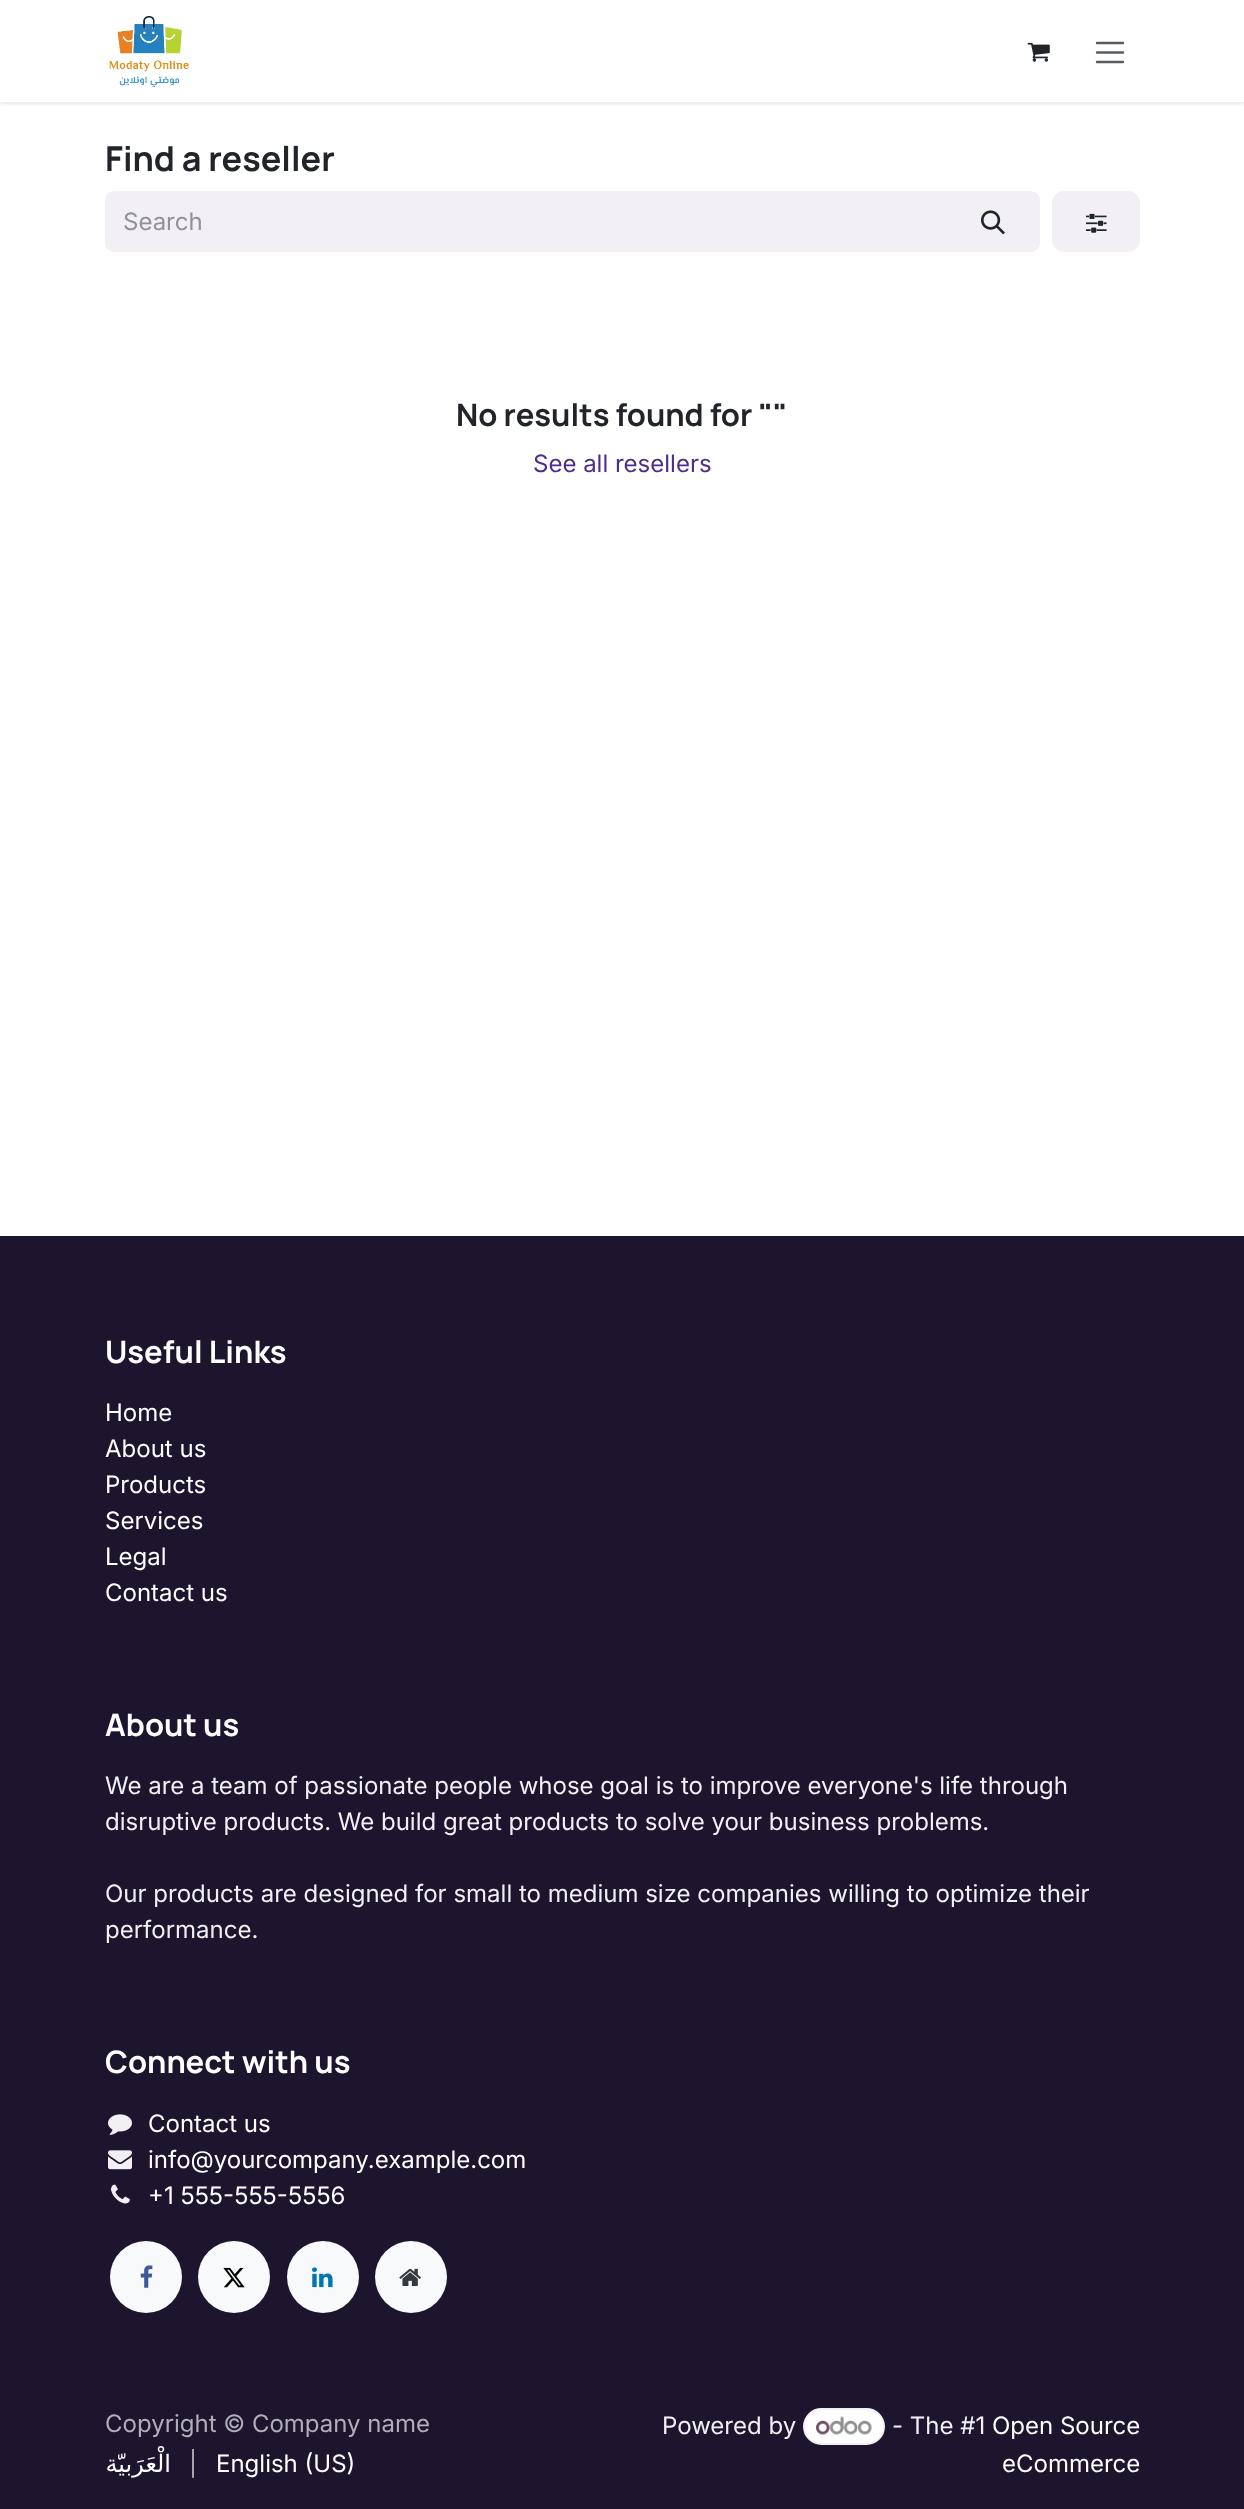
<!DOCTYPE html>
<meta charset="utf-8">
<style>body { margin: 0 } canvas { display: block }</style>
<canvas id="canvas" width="1244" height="2509"></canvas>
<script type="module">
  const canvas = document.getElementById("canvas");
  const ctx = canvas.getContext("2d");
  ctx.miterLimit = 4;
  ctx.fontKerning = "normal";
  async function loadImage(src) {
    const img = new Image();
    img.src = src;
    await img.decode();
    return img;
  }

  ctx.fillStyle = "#ffffff";
  ctx.fillRect(0, 0, 1244, 2509);
  ctx.save();
  ctx.beginPath();
  ctx.rect(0, 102, 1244, 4);
  ctx.clip();
  ctx.fillStyle = "rgba(0, 0, 0, 0.1)";
  ctx.filter = "blur(2px)";
  ctx.beginPath();
  ctx.rect(0, 2, 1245, 102);
  ctx.fill();
  ctx.filter = "none";
  ctx.restore();
  ctx.drawImage(await loadImage("img1.png"), 108, 15, 82, 74);
  ctx.drawImage(await loadImage("img2.png"), 1027, 42, 23, 20);
  ctx.beginPath();
  ctx.moveTo(1097, 43);
  ctx.lineTo(1123, 43);
  ctx.moveTo(1097, 52.5);
  ctx.lineTo(1123, 52.5);
  ctx.moveTo(1097, 62);
  ctx.lineTo(1123, 62);
  ctx.strokeStyle = "#595c5f";
  ctx.lineWidth = 2.4;
  ctx.lineCap = "round";
  ctx.stroke();
  ctx.font = "bold 34.25px Manrope";
  ctx.fillStyle = "#212529";
  ctx.fillText("Find a reseller", 105, 171);
  ctx.fillStyle = "#f2f0f5";
  ctx.beginPath();
  ctx.roundRect(105, 191, 845, 61, [9, 0, 0, 9]);
  ctx.fill();
  ctx.font = "24px Inter";
  ctx.fillStyle = "#909294";
  ctx.fillText("Search", 123, 230);
  ctx.fillStyle = "#f2f0f5";
  ctx.beginPath();
  ctx.roundRect(949, 192, 90, 59, [0, 8, 8, 0]);
  ctx.fill();
  ctx.strokeStyle = "#f2f0f5";
  ctx.lineWidth = 2;
  ctx.stroke();
  ctx.drawImage(await loadImage("img3.png"), 981, 210, 24, 25);
  ctx.beginPath();
  ctx.roundRect(1053, 192, 86, 59, 11);
  ctx.fill();
  ctx.stroke();
  ctx.drawImage(await loadImage("img4.png"), 1086, 213, 21, 20);
  ctx.font = "bold 31px Manrope";
  ctx.fillStyle = "#212529";
  ctx.fillText("No results found for \"\"", 456, 426);
  ctx.font = "24px Inter";
  ctx.fillStyle = "#4e2d89";
  ctx.fillText("See all resellers", 533, 472);
  ctx.fillStyle = "#1d142e";
  ctx.fillRect(0, 1236, 1244, 1273);
  ctx.font = "bold 31px Manrope";
  ctx.fillStyle = "#ffffff";
  ctx.fillText("Useful Links", 105, 1363);
  ctx.font = "24px Inter";
  ctx.fillText("Home", 105, 1421);
  ctx.fillText("About us", 105, 1457);
  ctx.fillText("Products", 105, 1493);
  ctx.fillText("Services", 105, 1529);
  ctx.fillText("Legal", 105, 1565);
  ctx.fillText("Contact us", 105, 1601);
  ctx.font = "bold 31px Manrope";
  ctx.fillText("About us", 105, 1736);
  ctx.font = "24px Inter";
  ctx.fillStyle = "#f2f0f5";
  ctx.fillText("We are a team of passionate people whose goal is to improve everyone's life through", 105, 1794);
  ctx.fillText("disruptive products. We build great products to solve your business problems.", 105, 1830);
  ctx.fillText("Our products are designed for small to medium size companies willing to optimize their", 105, 1902);
  ctx.fillText("performance.", 105, 1938);
  ctx.font = "bold 31px Manrope";
  ctx.fillStyle = "#ffffff";
  ctx.fillText("Connect with us", 105, 2073);
  ctx.drawImage(await loadImage("img5.png"), 108, 2114, 24, 21);
  ctx.font = "24px Inter";
  ctx.fillText("Contact us", 148, 2132);
  ctx.drawImage(await loadImage("img6.png"), 108, 2150, 24, 20);
  ctx.fillText("info@yourcompany.example.com", 148, 2168);
  ctx.drawImage(await loadImage("img7.png"), 111, 2184, 19, 20);
  ctx.fillText("+1 555-555-5556", 148, 2204);
  ctx.fillStyle = "#f8f9fa";
  ctx.beginPath();
  ctx.arc(146, 2277, 36, 0, Math.PI * 2);
  ctx.fill();
  ctx.drawImage(await loadImage("img8.png"), 140, 2265, 13, 23);
  ctx.beginPath();
  ctx.arc(234, 2277, 36, 0, Math.PI * 2);
  ctx.fill();
  ctx.drawImage(await loadImage("img9.png"), 223, 2267, 22, 21);
  ctx.beginPath();
  ctx.arc(323, 2277, 36, 0, Math.PI * 2);
  ctx.fill();
  ctx.drawImage(await loadImage("img10.png"), 312, 2267, 21, 21);
  ctx.beginPath();
  ctx.arc(411, 2277, 36, 0, Math.PI * 2);
  ctx.fill();
  ctx.drawImage(await loadImage("img11.png"), 399, 2268, 22, 18);
  ctx.fillStyle = "#b2aeb9";
  ctx.fillText("Copyright © Company name", 105, 2432);
  ctx.direction = "rtl";
  ctx.font = "24px DejaVu Sans";
  ctx.fillStyle = "#ffffff";
  ctx.fillText("الْعَرَبيّة", 171, 2472);
  ctx.direction = "ltr";
  ctx.font = "24px Inter";
  ctx.fillStyle = "#b2aeb9";
  ctx.fillText("|", 189, 2472);
  ctx.fillStyle = "#ffffff";
  ctx.fillText("English (US)", 216, 2472);
  ctx.fillStyle = "#f2f0f5";
  ctx.fillText("Powered by", 662, 2434);
  ctx.fillStyle = "#fefefe";
  ctx.beginPath();
  ctx.roundRect(804, 2409, 80, 35, 17.5);
  ctx.fill();
  ctx.stroke();
  ctx.drawImage(await loadImage("img12.png"), 816, 2416, 56, 19);
  ctx.fillStyle = "#f2f0f5";
  ctx.fillText("- The #1", 892, 2434);
  ctx.fillStyle = "#ffffff";
  ctx.fillText("Open Source", 992, 2434);
  ctx.fillText("eCommerce", 1002, 2472);
</script>
